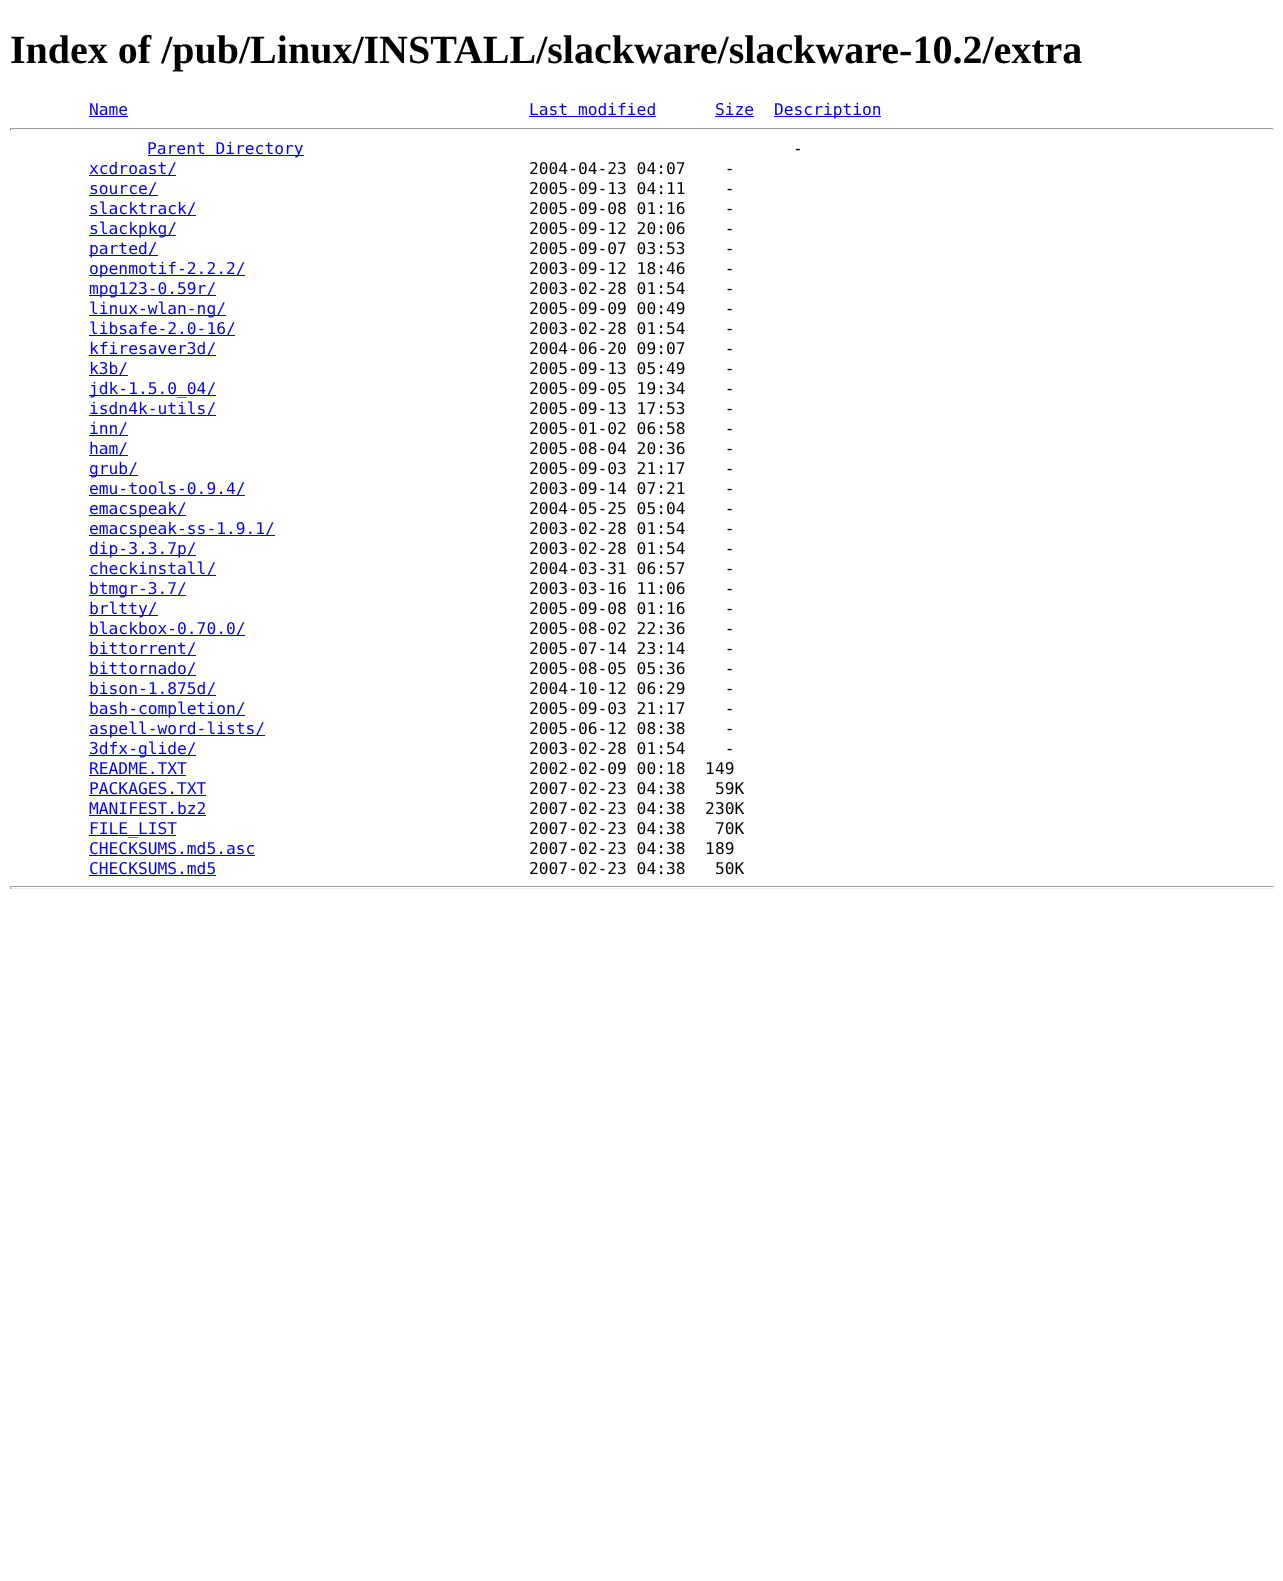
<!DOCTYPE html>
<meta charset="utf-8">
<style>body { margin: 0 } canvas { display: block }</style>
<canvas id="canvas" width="1283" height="1581"></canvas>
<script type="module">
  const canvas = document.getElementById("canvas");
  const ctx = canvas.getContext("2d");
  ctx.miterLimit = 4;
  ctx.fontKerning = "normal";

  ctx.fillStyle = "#ffffff";
  ctx.fillRect(0, 0, 1283, 1581);
  ctx.font = "bold 40px Liberation Serif";
  ctx.fillStyle = "#000000";
  ctx.fillText("Index of /pub/Linux/INSTALL/slackware/slackware-10.2/extra", 10, 63);
  ctx.font = "16.25px DejaVu Sans Mono";
  ctx.fillStyle = "#0000ee";
  ctx.fillText("Name", 89, 115);
  ctx.fillRect(89, 116, 39, 1);
  ctx.fillText("Last modified", 529, 115);
  ctx.fillRect(529, 116, 127, 1);
  ctx.fillText("Size", 715, 115);
  ctx.fillRect(715, 116, 39, 1);
  ctx.fillRect(774, 116, 107, 1);
  ctx.fillText("Description", 774, 115);
  ctx.fillStyle = "#9f9f9f";
  ctx.fillRect(10, 128, 1264, 1);
  ctx.fillStyle = "#eeeeee";
  ctx.fillRect(1273, 128, 1, 3);
  ctx.fillRect(10, 129, 1264, 1);
  ctx.fillStyle = "#9f9f9f";
  ctx.fillRect(10, 128, 1, 3);
  ctx.fillStyle = "#0000ee";
  ctx.fillRect(148, 155, 156, 1);
  ctx.fillText("Parent Directory", 147, 154);
  ctx.fillStyle = "#000000";
  ctx.fillText("-", 793, 154);
  ctx.fillStyle = "#0000ee";
  ctx.fillRect(89, 175, 87, 1);
  ctx.fillText("xcdroast/", 89, 174);
  ctx.fillStyle = "#000000";
  ctx.fillText("2004-04-23 04:07    -", 529, 174);
  ctx.fillStyle = "#0000ee";
  ctx.fillRect(89, 195, 69, 1);
  ctx.fillText("source/", 89, 194);
  ctx.fillStyle = "#000000";
  ctx.fillText("2005-09-13 04:11    -", 529, 194);
  ctx.fillStyle = "#0000ee";
  ctx.fillRect(89, 215, 107, 1);
  ctx.fillText("slacktrack/", 89, 214);
  ctx.fillStyle = "#000000";
  ctx.fillText("2005-09-08 01:16    -", 529, 214);
  ctx.fillStyle = "#0000ee";
  ctx.fillRect(89, 235, 87, 1);
  ctx.fillText("slackpkg/", 89, 234);
  ctx.fillStyle = "#000000";
  ctx.fillText("2005-09-12 20:06    -", 529, 234);
  ctx.fillStyle = "#0000ee";
  ctx.fillRect(89, 255, 69, 1);
  ctx.fillText("parted/", 89, 254);
  ctx.fillStyle = "#000000";
  ctx.fillText("2005-09-07 03:53    -", 529, 254);
  ctx.fillStyle = "#0000ee";
  ctx.fillRect(89, 275, 156, 1);
  ctx.fillText("openmotif-2.2.2/", 89, 274);
  ctx.fillStyle = "#000000";
  ctx.fillText("2003-09-12 18:46    -", 529, 274);
  ctx.fillStyle = "#0000ee";
  ctx.fillRect(89, 295, 127, 1);
  ctx.fillText("mpg123-0.59r/", 89, 294);
  ctx.fillStyle = "#000000";
  ctx.fillText("2003-02-28 01:54    -", 529, 294);
  ctx.fillStyle = "#0000ee";
  ctx.fillRect(89, 315, 137, 1);
  ctx.fillText("linux-wlan-ng/", 89, 314);
  ctx.fillStyle = "#000000";
  ctx.fillText("2005-09-09 00:49    -", 529, 314);
  ctx.fillStyle = "#0000ee";
  ctx.fillRect(89, 335, 146, 1);
  ctx.fillText("libsafe-2.0-16/", 89, 334);
  ctx.fillStyle = "#000000";
  ctx.fillText("2003-02-28 01:54    -", 529, 334);
  ctx.fillStyle = "#0000ee";
  ctx.fillRect(89, 355, 127, 1);
  ctx.fillText("kfiresaver3d/", 89, 354);
  ctx.fillStyle = "#000000";
  ctx.fillText("2004-06-20 09:07    -", 529, 354);
  ctx.fillStyle = "#0000ee";
  ctx.fillRect(89, 375, 39, 1);
  ctx.fillText("k3b/", 89, 374);
  ctx.fillStyle = "#000000";
  ctx.fillText("2005-09-13 05:49    -", 529, 374);
  ctx.fillStyle = "#0000ee";
  ctx.fillRect(89, 395, 127, 1);
  ctx.fillText("jdk-1.5.0_04/", 89, 394);
  ctx.fillStyle = "#000000";
  ctx.fillText("2005-09-05 19:34    -", 529, 394);
  ctx.fillStyle = "#0000ee";
  ctx.fillRect(89, 415, 127, 1);
  ctx.fillText("isdn4k-utils/", 89, 414);
  ctx.fillStyle = "#000000";
  ctx.fillText("2005-09-13 17:53    -", 529, 414);
  ctx.fillStyle = "#0000ee";
  ctx.fillRect(89, 435, 39, 1);
  ctx.fillText("inn/", 89, 434);
  ctx.fillStyle = "#000000";
  ctx.fillText("2005-01-02 06:58    -", 529, 434);
  ctx.fillStyle = "#0000ee";
  ctx.fillRect(89, 455, 39, 1);
  ctx.fillText("ham/", 89, 454);
  ctx.fillStyle = "#000000";
  ctx.fillText("2005-08-04 20:36    -", 529, 454);
  ctx.fillStyle = "#0000ee";
  ctx.fillRect(89, 475, 49, 1);
  ctx.fillText("grub/", 89, 474);
  ctx.fillStyle = "#000000";
  ctx.fillText("2005-09-03 21:17    -", 529, 474);
  ctx.fillStyle = "#0000ee";
  ctx.fillRect(89, 495, 156, 1);
  ctx.fillText("emu-tools-0.9.4/", 89, 494);
  ctx.fillStyle = "#000000";
  ctx.fillText("2003-09-14 07:21    -", 529, 494);
  ctx.fillStyle = "#0000ee";
  ctx.fillRect(89, 515, 97, 1);
  ctx.fillText("emacspeak/", 89, 514);
  ctx.fillStyle = "#000000";
  ctx.fillText("2004-05-25 05:04    -", 529, 514);
  ctx.fillStyle = "#0000ee";
  ctx.fillRect(89, 535, 186, 1);
  ctx.fillText("emacspeak-ss-1.9.1/", 89, 534);
  ctx.fillStyle = "#000000";
  ctx.fillText("2003-02-28 01:54    -", 529, 534);
  ctx.fillStyle = "#0000ee";
  ctx.fillRect(89, 555, 107, 1);
  ctx.fillText("dip-3.3.7p/", 89, 554);
  ctx.fillStyle = "#000000";
  ctx.fillText("2003-02-28 01:54    -", 529, 554);
  ctx.fillStyle = "#0000ee";
  ctx.fillRect(89, 575, 127, 1);
  ctx.fillText("checkinstall/", 89, 574);
  ctx.fillStyle = "#000000";
  ctx.fillText("2004-03-31 06:57    -", 529, 574);
  ctx.fillStyle = "#0000ee";
  ctx.fillRect(89, 595, 97, 1);
  ctx.fillText("btmgr-3.7/", 89, 594);
  ctx.fillStyle = "#000000";
  ctx.fillText("2003-03-16 11:06    -", 529, 594);
  ctx.fillStyle = "#0000ee";
  ctx.fillRect(89, 615, 69, 1);
  ctx.fillText("brltty/", 89, 614);
  ctx.fillStyle = "#000000";
  ctx.fillText("2005-09-08 01:16    -", 529, 614);
  ctx.fillStyle = "#0000ee";
  ctx.fillRect(89, 635, 156, 1);
  ctx.fillText("blackbox-0.70.0/", 89, 634);
  ctx.fillStyle = "#000000";
  ctx.fillText("2005-08-02 22:36    -", 529, 634);
  ctx.fillStyle = "#0000ee";
  ctx.fillRect(89, 655, 107, 1);
  ctx.fillText("bittorrent/", 89, 654);
  ctx.fillStyle = "#000000";
  ctx.fillText("2005-07-14 23:14    -", 529, 654);
  ctx.fillStyle = "#0000ee";
  ctx.fillRect(89, 675, 107, 1);
  ctx.fillText("bittornado/", 89, 674);
  ctx.fillStyle = "#000000";
  ctx.fillText("2005-08-05 05:36    -", 529, 674);
  ctx.fillStyle = "#0000ee";
  ctx.fillRect(89, 695, 127, 1);
  ctx.fillText("bison-1.875d/", 89, 694);
  ctx.fillStyle = "#000000";
  ctx.fillText("2004-10-12 06:29    -", 529, 694);
  ctx.fillStyle = "#0000ee";
  ctx.fillRect(89, 715, 156, 1);
  ctx.fillText("bash-completion/", 89, 714);
  ctx.fillStyle = "#000000";
  ctx.fillText("2005-09-03 21:17    -", 529, 714);
  ctx.fillStyle = "#0000ee";
  ctx.fillRect(89, 735, 176, 1);
  ctx.fillText("aspell-word-lists/", 89, 734);
  ctx.fillStyle = "#000000";
  ctx.fillText("2005-06-12 08:38    -", 529, 734);
  ctx.fillStyle = "#0000ee";
  ctx.fillRect(89, 755, 107, 1);
  ctx.fillText("3dfx-glide/", 89, 754);
  ctx.fillStyle = "#000000";
  ctx.fillText("2003-02-28 01:54    -", 529, 754);
  ctx.fillStyle = "#0000ee";
  ctx.fillText("README.TXT", 89, 774);
  ctx.fillRect(89, 775, 97, 1);
  ctx.fillStyle = "#000000";
  ctx.fillText("2002-02-09 00:18  149", 529, 774);
  ctx.fillStyle = "#0000ee";
  ctx.fillText("PACKAGES.TXT", 89, 794);
  ctx.fillRect(89, 795, 117, 1);
  ctx.fillStyle = "#000000";
  ctx.fillText("2007-02-23 04:38   59K", 529, 794);
  ctx.fillStyle = "#0000ee";
  ctx.fillText("MANIFEST.bz2", 89, 814);
  ctx.fillRect(89, 815, 117, 1);
  ctx.fillStyle = "#000000";
  ctx.fillText("2007-02-23 04:38  230K", 529, 814);
  ctx.fillStyle = "#0000ee";
  ctx.fillRect(89, 835, 87, 1);
  ctx.fillText("FILE_LIST", 89, 834);
  ctx.fillStyle = "#000000";
  ctx.fillText("2007-02-23 04:38   70K", 529, 834);
  ctx.fillStyle = "#0000ee";
  ctx.fillText("CHECKSUMS.md5.asc", 89, 854);
  ctx.fillRect(89, 855, 166, 1);
  ctx.fillStyle = "#000000";
  ctx.fillText("2007-02-23 04:38  189", 529, 854);
  ctx.fillStyle = "#0000ee";
  ctx.fillText("CHECKSUMS.md5", 89, 874);
  ctx.fillRect(89, 875, 127, 1);
  ctx.fillStyle = "#000000";
  ctx.fillText("2007-02-23 04:38   50K", 529, 874);
  ctx.fillStyle = "#9f9f9f";
  ctx.fillRect(10, 886, 1264, 1);
  ctx.fillStyle = "#eeeeee";
  ctx.fillRect(1273, 886, 1, 3);
  ctx.fillRect(10, 888, 1264, 1);
  ctx.fillStyle = "#9f9f9f";
  ctx.fillRect(10, 886, 1, 3);
</script>
